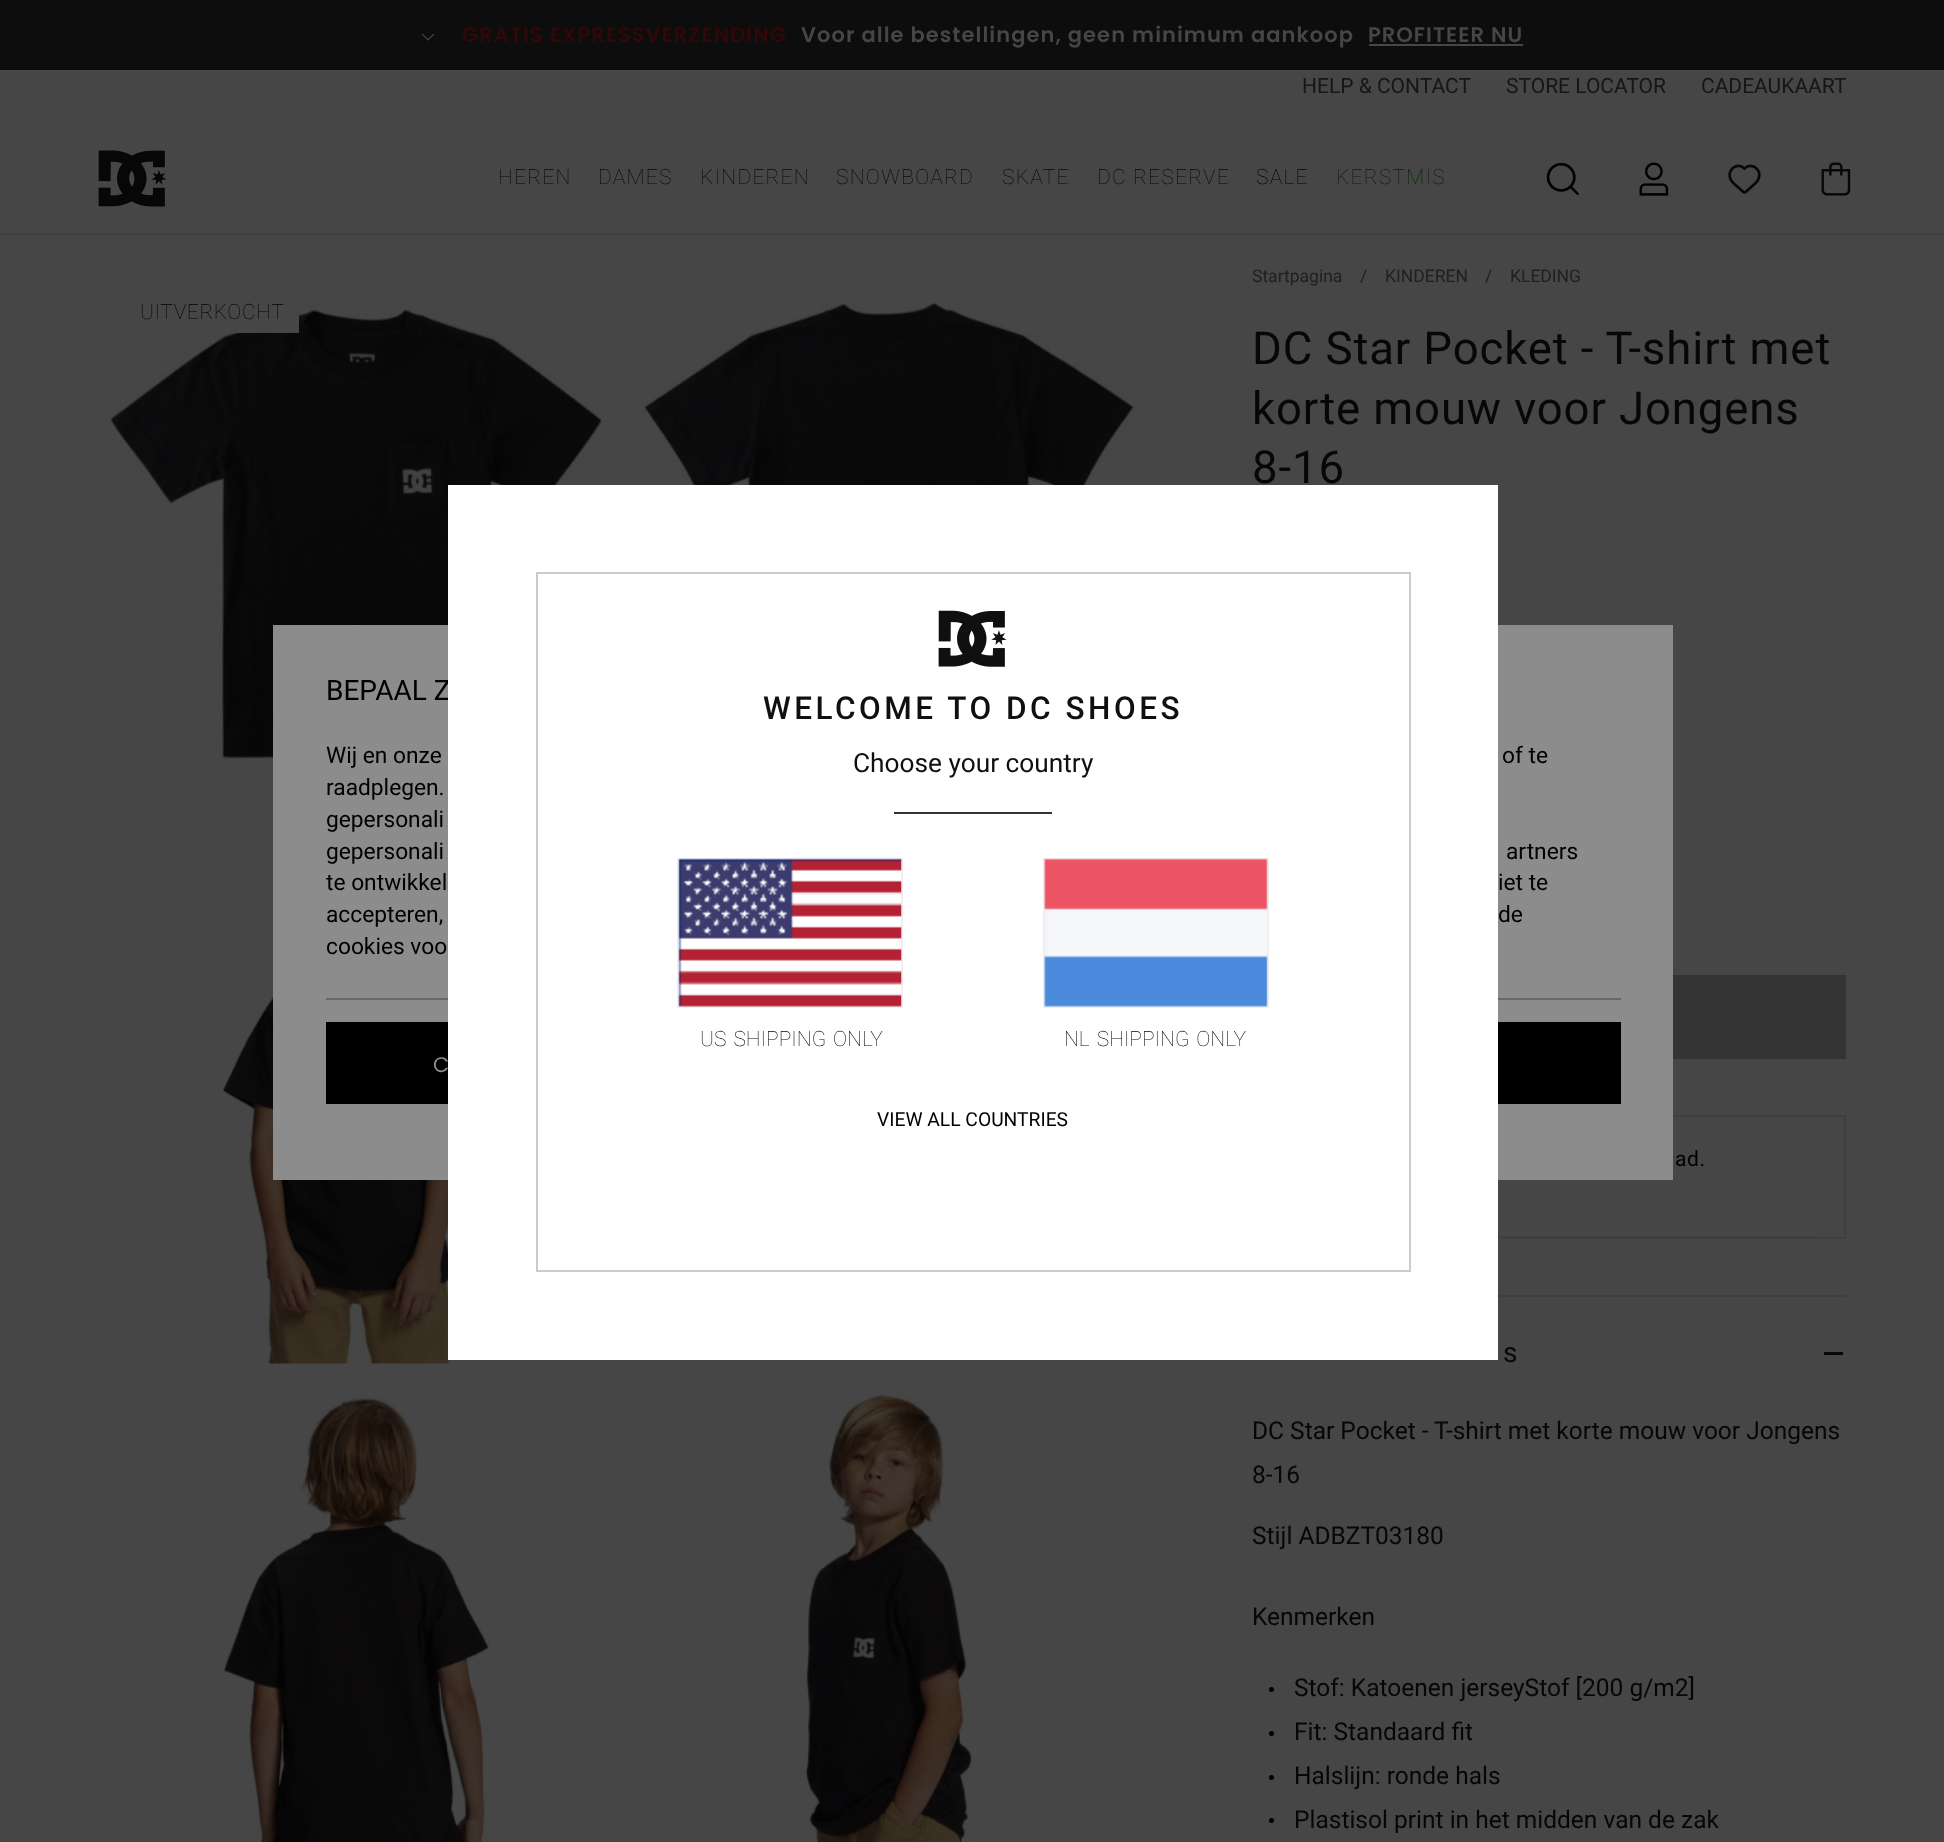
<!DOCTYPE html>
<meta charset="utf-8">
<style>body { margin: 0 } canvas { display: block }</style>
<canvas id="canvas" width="1944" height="1842"></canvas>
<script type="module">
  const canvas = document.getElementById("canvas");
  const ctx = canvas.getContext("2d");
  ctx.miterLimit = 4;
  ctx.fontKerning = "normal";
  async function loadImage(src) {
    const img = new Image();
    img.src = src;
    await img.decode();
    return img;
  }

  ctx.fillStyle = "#464646";
  ctx.fillRect(0, 0, 1944, 1842);
  ctx.fillStyle = "#0d0d0d";
  ctx.fillRect(0, 0, 1944, 70);
  ctx.drawImage(await loadImage("img1.png"), 422, 33, 13, 8);
  ctx.letterSpacing = "1.05px";
  ctx.font = "600 21px Poppins";
  ctx.fillStyle = "#310707";
  ctx.fillText("GRATIS EXPRESSVERZENDING", 462, 42);
  ctx.fillStyle = "#464646";
  ctx.fillText("Voor alle bestellingen, geen minimum aankoop", 801, 42);
  ctx.fillText("PROFITEER NU", 1368, 42);
  ctx.fillRect(1369, 44, 154, 2);
  ctx.letterSpacing = "0px";
  ctx.font = "21px Roboto";
  ctx.fillStyle = "#161616";
  ctx.fillText("HELP & CONTACT", 1302, 93);
  ctx.fillText("STORE LOCATOR", 1506, 93);
  ctx.fillText("CADEAUKAART", 1701, 93);
  ctx.fillStyle = "#3f3f3f";
  ctx.fillRect(0, 233, 1944, 2);
  ctx.drawImage(await loadImage("img2.png"), 98, 150, 69, 57);
  ctx.letterSpacing = "1.25px";
  ctx.font = "100 21px Roboto";
  ctx.fillStyle = "#070707";
  ctx.fillText("HEREN", 498, 184);
  ctx.fillText("DAMES", 598, 184);
  ctx.fillText("KINDEREN", 700, 184);
  ctx.fillText("SNOWBOARD", 836, 184);
  ctx.fillText("SKATE", 1002, 184);
  ctx.fillText("DC RESERVE", 1097, 184);
  ctx.fillStyle = "#000000";
  ctx.fillText("SALE", 1256, 184);
  ctx.fillStyle = "#002301";
  ctx.fillText("KERSTMIS", 1336, 184);
  ctx.drawImage(await loadImage("img3.png"), 1546, 162, 33, 33);
  ctx.drawImage(await loadImage("img4.png"), 1639, 162, 30, 34);
  ctx.drawImage(await loadImage("img5.png"), 1728, 164, 33, 30);
  ctx.drawImage(await loadImage("img6.png"), 1821, 162, 30, 34);
  ctx.drawImage(await loadImage("img7.png"), 108, 303, 499, 459);
  ctx.fillStyle = "#464646";
  ctx.fillRect(233, 314, 66, 19);
  ctx.letterSpacing = "0.6px";
  ctx.fillStyle = "#000000";
  ctx.fillText("UITVERKOCHT", 140, 319);
  ctx.drawImage(await loadImage("img8.png"), 642, 302, 497, 183);
  ctx.drawImage(await loadImage("img9.png"), 222, 833, 268, 531);
  ctx.drawImage(await loadImage("img10.png"), 223, 1391, 266, 451);
  ctx.drawImage(await loadImage("img11.png"), 805, 1391, 168, 451);
  ctx.letterSpacing = "0px";
  ctx.font = "17.5px Roboto";
  ctx.fillStyle = "#202020";
  ctx.fillText("Startpagina", 1252, 282);
  ctx.fillText("/", 1360, 282);
  ctx.fillText("KINDEREN", 1385, 282);
  ctx.fillText("/", 1485, 282);
  ctx.fillText("KLEDING", 1510, 282);
  ctx.letterSpacing = "0.9px";
  ctx.font = "45.5px Roboto";
  ctx.fillStyle = "#070707";
  ctx.fillText("DC Star Pocket - T-shirt met", 1252, 364);
  ctx.fillText("korte mouw voor Jongens", 1252, 424);
  ctx.fillText("8-16", 1252, 483);
  ctx.fillStyle = "#343434";
  ctx.fillRect(1673, 975, 173, 84);
  ctx.strokeStyle = "#3f3f3f";
  ctx.lineWidth = 2;
  ctx.strokeRect(1252, 1116, 593, 122);
  ctx.fillStyle = "#3f3f3f";
  ctx.fillRect(1498, 1236, 319, 1);
  ctx.letterSpacing = "0.6px";
  ctx.font = "21px Roboto";
  ctx.fillStyle = "#000000";
  ctx.fillText("ad.", 1675, 1166);
  ctx.fillStyle = "#3f3f3f";
  ctx.fillRect(1498, 1295, 348, 2);
  ctx.letterSpacing = "3px";
  ctx.font = "28px Roboto";
  ctx.fillStyle = "#070707";
  ctx.fillText("s", 1503, 1362);
  ctx.fillRect(1824, 1352, 19, 3);
  ctx.letterSpacing = "0px";
  ctx.font = "24.5px Roboto";
  ctx.fillText("DC Star Pocket - T-shirt met korte mouw voor Jongens", 1252, 1439);
  ctx.fillText("8-16", 1252, 1483);
  ctx.fillText("Stijl ADBZT03180", 1252, 1544);
  ctx.fillText("Kenmerken", 1252, 1625);
  ctx.fillStyle = "#000000";
  ctx.beginPath();
  ctx.arc(1271.5, 1689.5, 2.5, 0, Math.PI * 2);
  ctx.fill();
  ctx.fillStyle = "#070707";
  ctx.fillText("Stof: Katoenen jerseyStof [200 g/m2]", 1294, 1696);
  ctx.fillStyle = "#000000";
  ctx.beginPath();
  ctx.arc(1271.5, 1733.5, 2.5, 0, Math.PI * 2);
  ctx.fill();
  ctx.fillStyle = "#070707";
  ctx.fillText("Fit: Standaard fit", 1294, 1740);
  ctx.fillStyle = "#000000";
  ctx.beginPath();
  ctx.arc(1271.5, 1777.5, 2.5, 0, Math.PI * 2);
  ctx.fill();
  ctx.fillStyle = "#070707";
  ctx.fillText("Halslijn: ronde hals", 1294, 1784);
  ctx.fillStyle = "#000000";
  ctx.beginPath();
  ctx.arc(1271.5, 1820.5, 2.5, 0, Math.PI * 2);
  ctx.fill();
  ctx.fillStyle = "#070707";
  ctx.fillText("Plastisol print in het midden van de zak", 1294, 1828);
  ctx.fillStyle = "#8c8c8c";
  ctx.fillRect(273, 625, 1400, 555);
  ctx.font = "28px Roboto";
  ctx.fillStyle = "#000000";
  ctx.fillText("BEPAAL Z", 326, 700);
  ctx.font = "22.75px Roboto";
  ctx.fillText("Wij en onze", 326, 763);
  ctx.fillText("of te", 1502, 763);
  ctx.fillText("raadplegen.", 326, 795);
  ctx.fillText("gepersonali", 326, 827);
  ctx.fillText("gepersonali", 326, 859);
  ctx.fillText("artners", 1506, 859);
  ctx.fillText("te ontwikkel", 326, 890);
  ctx.fillText("iet te", 1498, 890);
  ctx.fillText("accepteren,", 326, 922);
  ctx.fillText("de", 1498, 922);
  ctx.fillText("cookies voo", 326, 954);
  ctx.fillStyle = "#676767";
  ctx.fillRect(326, 998, 1295, 2);
  ctx.fillStyle = "#000000";
  ctx.fillRect(326, 1022, 122, 82);
  ctx.letterSpacing = "1.05px";
  ctx.font = "21px Poppins";
  ctx.fillStyle = "#8c8c8c";
  ctx.fillText("C", 433, 1072);
  ctx.fillStyle = "#000000";
  ctx.fillRect(1498, 1022, 123, 82);
  ctx.fillStyle = "#ffffff";
  ctx.fillRect(448, 485, 1050, 875);
  ctx.strokeStyle = "#cccccc";
  ctx.strokeRect(537, 573, 873, 698);
  ctx.drawImage(await loadImage("img12.png"), 938, 610, 69, 57);
  ctx.letterSpacing = "3.5px";
  ctx.font = "500 31.5px Roboto";
  ctx.fillStyle = "#101010";
  ctx.fillText("WELCOME TO DC SHOES", 763, 719);
  ctx.letterSpacing = "0px";
  ctx.font = "26.25px Roboto";
  ctx.fillText("Choose your country", 853, 772);
  ctx.fillStyle = "#333333";
  ctx.fillRect(894, 812, 158, 2);
  ctx.strokeStyle = "#eeeeee";
  ctx.strokeRect(678, 859, 224, 148);
  ctx.drawImage(await loadImage("img13.png"), 678, 858, 224, 149);
  ctx.wordSpacing = "2px";
  ctx.font = "100 21px Roboto";
  ctx.fillStyle = "#000000";
  ctx.fillText("US SHIPPING ONLY", 700, 1046);
  ctx.strokeRect(1044, 859, 224, 148);
  ctx.drawImage(await loadImage("img14.png"), 1044, 858, 224, 149);
  ctx.fillText("NL SHIPPING ONLY", 1064, 1046);
  ctx.wordSpacing = "0px";
  ctx.font = "19.25px Roboto";
  ctx.fillText("VIEW ALL COUNTRIES", 877, 1126);
</script>
